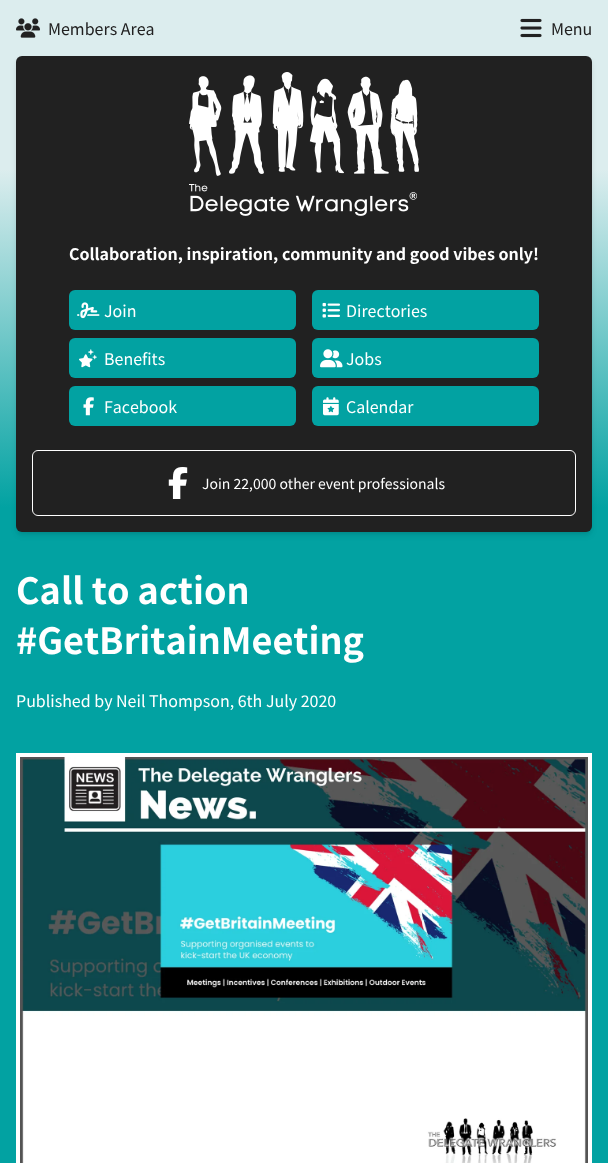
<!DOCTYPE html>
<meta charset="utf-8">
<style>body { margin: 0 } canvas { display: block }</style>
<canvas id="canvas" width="608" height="1163"></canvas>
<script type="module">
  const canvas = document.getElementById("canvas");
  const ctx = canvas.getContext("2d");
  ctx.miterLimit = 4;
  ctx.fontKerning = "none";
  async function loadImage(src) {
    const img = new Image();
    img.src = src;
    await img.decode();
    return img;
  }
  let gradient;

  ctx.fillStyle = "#ffffff";
  ctx.fillRect(0, 0, 608, 1163);
  gradient = ctx.createLinearGradient(304, 564, 304, 0);
  gradient.addColorStop(0.1, "#02a2a2");
  gradient.addColorStop(0.7, "#dcedee");
  ctx.fillStyle = gradient;
  ctx.fillRect(0, 0, 608, 564);
  ctx.drawImage(await loadImage("img1.png"), 16, 18, 24, 20);
  ctx.font = "16px Noto Sans KR";
  ctx.fillStyle = "#212121";
  ctx.fillText("Members Area", 48, 35);
  ctx.drawImage(await loadImage("img2.png"), 520, 18, 22, 20);
  ctx.fillText("Menu", 551, 35);
  ctx.fillStyle = "rgba(0, 0, 0, 0.1)";
  ctx.filter = "blur(2px)";
  ctx.beginPath();
  ctx.roundRect(18, 60, 572, 472, 4);
  ctx.fill();
  ctx.filter = "none";
  ctx.filter = "blur(3px)";
  ctx.beginPath();
  ctx.roundRect(17, 61, 574, 474, 5);
  ctx.fill();
  ctx.filter = "none";
  ctx.fillStyle = "#212121";
  ctx.beginPath();
  ctx.roundRect(16, 56, 576, 476, 6);
  ctx.fill();
  ctx.drawImage(await loadImage("img3.png"), 189, 72, 230, 104);
  ctx.drawImage(await loadImage("img4.png"), 189, 184, 228, 32);
  ctx.font = "bold 16px Noto Sans KR";
  ctx.fillStyle = "#ffffff";
  ctx.fillText("Collaboration, inspiration, community and good vibes only!", 69, 260);
  ctx.fillStyle = "#02a2a2";
  ctx.beginPath();
  ctx.roundRect(69, 290, 227, 40, 6);
  ctx.fill();
  ctx.drawImage(await loadImage("img5.png"), 77, 302, 23, 17);
  ctx.font = "16px Noto Sans KR";
  ctx.fillStyle = "#ffffff";
  ctx.fillText("Join", 104, 317);
  ctx.fillStyle = "#02a2a2";
  ctx.beginPath();
  ctx.roundRect(312, 290, 227, 40, 6);
  ctx.fill();
  ctx.drawImage(await loadImage("img6.png"), 322, 302, 18, 16);
  ctx.fillStyle = "#ffffff";
  ctx.fillText("Directories", 346, 317);
  ctx.fillStyle = "#02a2a2";
  ctx.beginPath();
  ctx.roundRect(69, 338, 227, 40, 6);
  ctx.fill();
  ctx.drawImage(await loadImage("img7.png"), 79, 349, 18, 19);
  ctx.fillStyle = "#ffffff";
  ctx.fillText("Benefits", 104, 365);
  ctx.fillStyle = "#02a2a2";
  ctx.beginPath();
  ctx.roundRect(312, 338, 227, 40, 6);
  ctx.fill();
  ctx.drawImage(await loadImage("img8.png"), 320, 349, 23, 19);
  ctx.fillStyle = "#ffffff";
  ctx.fillText("Jobs", 346, 365);
  ctx.fillStyle = "#02a2a2";
  ctx.beginPath();
  ctx.roundRect(69, 386, 227, 40, 6);
  ctx.fill();
  ctx.drawImage(await loadImage("img9.png"), 83, 397, 11, 19);
  ctx.fillStyle = "#ffffff";
  ctx.fillText("Facebook", 104, 413);
  ctx.fillStyle = "#02a2a2";
  ctx.beginPath();
  ctx.roundRect(312, 386, 227, 40, 6);
  ctx.fill();
  ctx.drawImage(await loadImage("img10.png"), 323, 397, 16, 19);
  ctx.fillStyle = "#ffffff";
  ctx.fillText("Calendar", 346, 413);
  ctx.beginPath();
  ctx.roundRect(32.5, 450.5, 543, 65, 5.5);
  ctx.strokeStyle = "#ffffff";
  ctx.stroke();
  ctx.drawImage(await loadImage("img11.png"), 168, 467, 20, 32);
  ctx.font = "14px Noto Sans KR";
  ctx.fillText("Join 22,000 other event professionals", 202, 489);
  ctx.fillStyle = "#02a2a2";
  ctx.fillRect(0, 564, 608, 599);
  ctx.font = "bold 36px Noto Sans KR";
  ctx.fillStyle = "#ffffff";
  ctx.fillText("Call to action", 16, 604);
  ctx.fillText("#GetBritainMeeting", 16, 654);
  ctx.font = "16px Noto Sans KR";
  ctx.fillText("Published by Neil Thompson, 6th July 2020", 16, 707);
  ctx.lineWidth = 4;
  ctx.strokeRect(18, 755, 572, 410);
  ctx.drawImage(await loadImage("img12.png"), 20, 757, 568, 406);
</script>
